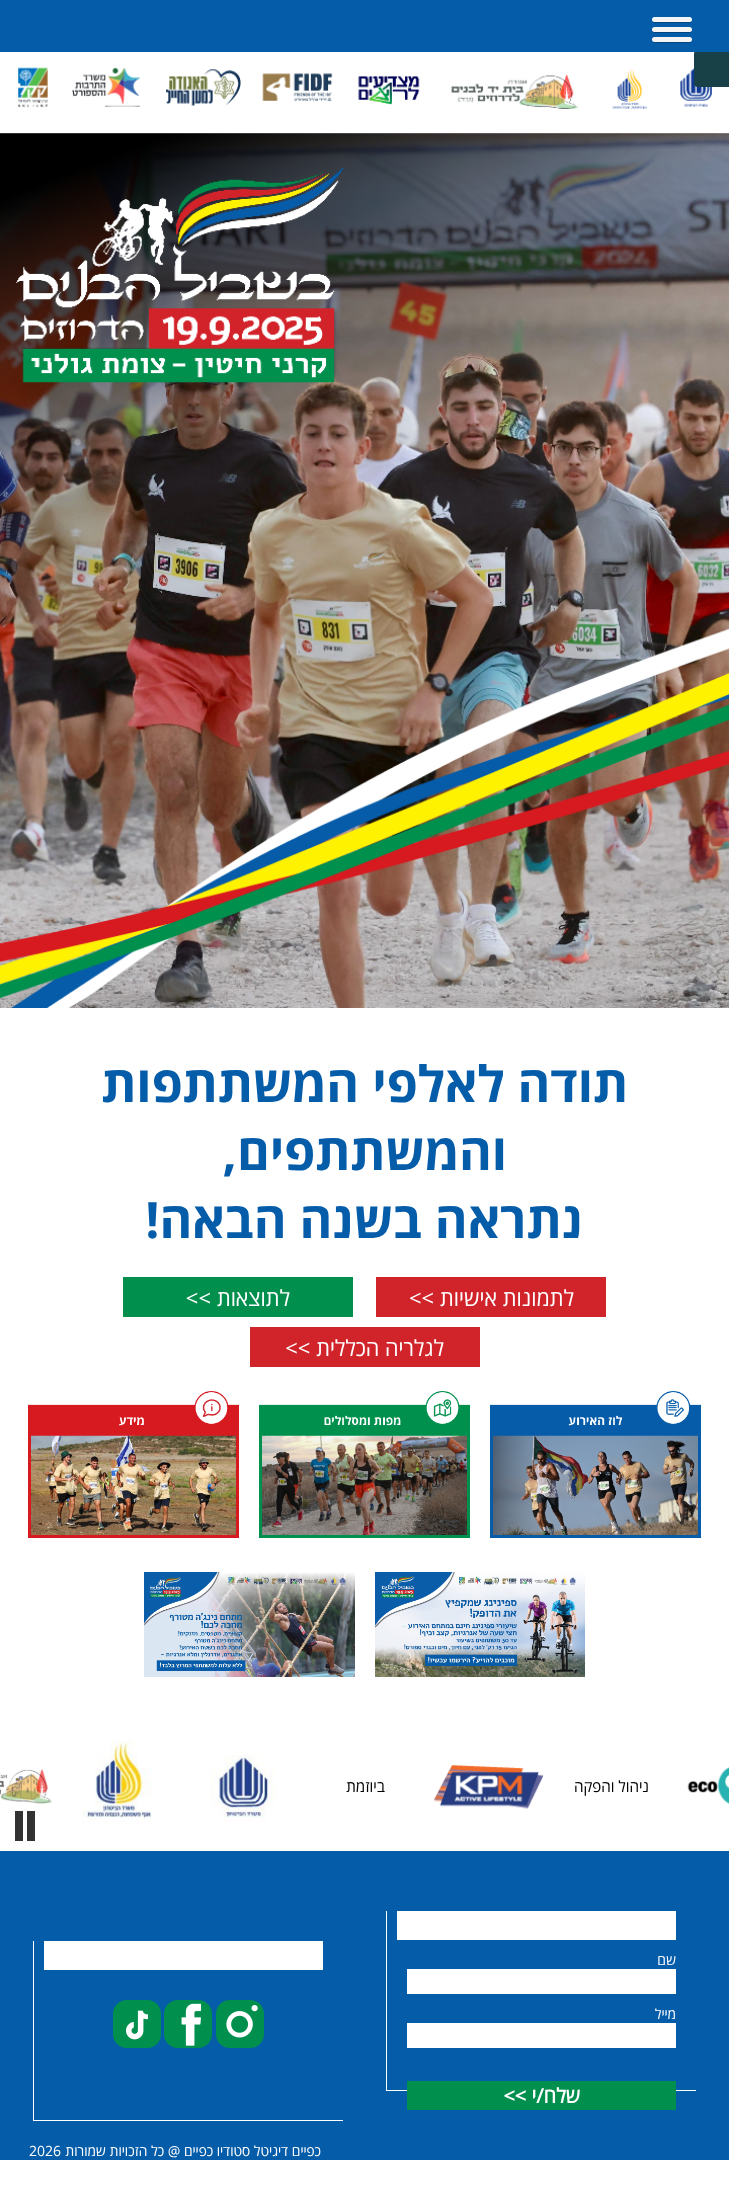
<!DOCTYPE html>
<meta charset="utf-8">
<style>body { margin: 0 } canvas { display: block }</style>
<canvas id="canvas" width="729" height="2190"></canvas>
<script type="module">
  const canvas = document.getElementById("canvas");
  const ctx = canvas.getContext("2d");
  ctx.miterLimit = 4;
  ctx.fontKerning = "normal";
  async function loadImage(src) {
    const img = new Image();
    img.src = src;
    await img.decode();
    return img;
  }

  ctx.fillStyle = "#ffffff";
  ctx.fillRect(0, 0, 729, 2190);
  ctx.drawImage(await loadImage("img1.png"), 0, 67, 729, 941);
  ctx.fillStyle = "#184147";
  ctx.beginPath();
  ctx.roundRect(694, 50, 35, 37, [4, 0, 0, 4]);
  ctx.fill();
  ctx.fillStyle = "#055ca9";
  ctx.fillRect(0, 0, 729, 52);
  ctx.fillStyle = "#04457f";
  ctx.beginPath();
  ctx.moveTo(652, 20);
  ctx.bezierCurveTo(651, 24, 659, 23, 660, 23);
  ctx.lineTo(684, 23);
  ctx.bezierCurveTo(685, 23, 693, 24, 692, 20);
  ctx.bezierCurveTo(692, 21, 691, 22, 690, 22);
  ctx.lineTo(654, 22);
  ctx.bezierCurveTo(653, 22, 652, 21, 652, 20);
  ctx.closePath();
  ctx.fill();
  ctx.fillStyle = "#f5f5f5";
  ctx.beginPath();
  ctx.roundRect(652, 17, 40, 5, 2.5);
  ctx.fill();
  ctx.fillStyle = "#04457f";
  ctx.beginPath();
  ctx.moveTo(652, 30);
  ctx.bezierCurveTo(651, 34, 659, 33, 660, 33);
  ctx.lineTo(684, 33);
  ctx.bezierCurveTo(685, 33, 693, 34, 692, 30);
  ctx.bezierCurveTo(692, 31, 691, 32, 690, 32);
  ctx.lineTo(654, 32);
  ctx.bezierCurveTo(653, 32, 652, 31, 652, 30);
  ctx.closePath();
  ctx.fill();
  ctx.fillStyle = "#f5f5f5";
  ctx.beginPath();
  ctx.roundRect(652, 27, 40, 5, 2.5);
  ctx.fill();
  ctx.fillStyle = "#04457f";
  ctx.beginPath();
  ctx.moveTo(652, 40);
  ctx.bezierCurveTo(651, 44, 659, 43, 660, 43);
  ctx.lineTo(684, 43);
  ctx.bezierCurveTo(685, 43, 693, 44, 692, 40);
  ctx.bezierCurveTo(692, 41, 691, 42, 690, 42);
  ctx.lineTo(654, 42);
  ctx.bezierCurveTo(653, 42, 652, 41, 652, 40);
  ctx.closePath();
  ctx.fill();
  ctx.fillStyle = "#f5f5f5";
  ctx.beginPath();
  ctx.roundRect(652, 37, 40, 5, 2.5);
  ctx.fill();
  ctx.direction = "rtl";
  ctx.font = "bold 50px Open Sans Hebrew";
  ctx.fillStyle = "#055ca9";
  ctx.fillText("תודה לאלפי המשתתפות", 628, 1102);
  ctx.fillText("והמשתתפים,", 507, 1170);
  ctx.fillText("נתראה בשנה הבאה!", 583, 1238);
  ctx.fillStyle = "#d1232a";
  ctx.fillRect(376, 1277, 230, 40);
  ctx.font = "22px Open Sans Hebrew";
  ctx.fillStyle = "#ffffff";
  ctx.fillText("לתמונות אישיות >>", 574, 1306);
  ctx.fillStyle = "#008f4d";
  ctx.fillRect(123, 1277, 230, 40);
  ctx.fillStyle = "#ffffff";
  ctx.fillText("לתוצאות >>", 290, 1306);
  ctx.fillStyle = "#d1232a";
  ctx.fillRect(250, 1327, 230, 40);
  ctx.fillStyle = "#ffffff";
  ctx.fillText("לגלריה הכללית >>", 444, 1356);
  ctx.drawImage(await loadImage("img2.png"), 490, 1391, 211, 147);
  ctx.drawImage(await loadImage("img3.png"), 259, 1391, 211, 147);
  ctx.drawImage(await loadImage("img4.png"), 28, 1391, 211, 147);
  ctx.drawImage(await loadImage("img5.png"), 375, 1572, 210, 105);
  ctx.drawImage(await loadImage("img6.png"), 144, 1572, 211, 105);
  ctx.drawImage(await loadImage("img7.png"), 687, 1767, 42, 38);
  ctx.font = "15.5px Open Sans Hebrew";
  ctx.fillStyle = "#000000";
  ctx.fillText("ניהול והפקה", 649, 1792);
  ctx.drawImage(await loadImage("img8.png"), 434, 1765, 110, 44);
  ctx.fillText("ביוזמת", 385, 1792);
  ctx.drawImage(await loadImage("img9.png"), 210, 1755, 65, 67);
  ctx.drawImage(await loadImage("img10.png"), 82, 1741, 70, 83);
  ctx.drawImage(await loadImage("img11.png"), 0, 1769, 53, 35);
  ctx.fillStyle = "#333333";
  ctx.fillRect(27, 1811, 8, 30);
  ctx.fillRect(15, 1811, 8, 30);
  ctx.fillStyle = "#055ca9";
  ctx.fillRect(0, 1851, 729, 309);
  ctx.fillStyle = "#ffffff";
  ctx.fillRect(386, 2090, 310, 1);
  ctx.fillRect(386, 1911, 1, 180);
  ctx.fillRect(397, 1911, 279, 29);
  ctx.font = "14px Open Sans Hebrew";
  ctx.fillText("שם", 676, 1965);
  ctx.fillRect(407, 1969, 269, 25);
  ctx.fillText("מייל", 676, 2019);
  ctx.fillRect(407, 2023, 269, 25);
  ctx.fillStyle = "#008f4d";
  ctx.fillRect(407, 2081, 269, 29);
  ctx.font = "bold 20px Open Sans";
  ctx.fillStyle = "#ffffff";
  ctx.fillText("שלח/י >>", 580, 2103);
  ctx.fillRect(33, 2120, 310, 1);
  ctx.fillRect(33, 1941, 1, 180);
  ctx.fillRect(44, 1941, 279, 29);
  ctx.drawImage(await loadImage("img12.png"), 216, 2000, 48, 48);
  ctx.drawImage(await loadImage("img13.png"), 164, 2000, 48, 48);
  ctx.drawImage(await loadImage("img14.png"), 113, 2000, 48, 48);
  ctx.font = "14px Open Sans Hebrew";
  ctx.fillText("כפיים דיגיטל סטודיו כפיים @ כל הזכויות שמורות", 321, 2156);
  ctx.direction = "ltr";
  ctx.fillText("2026", 29, 2156);
</script>
